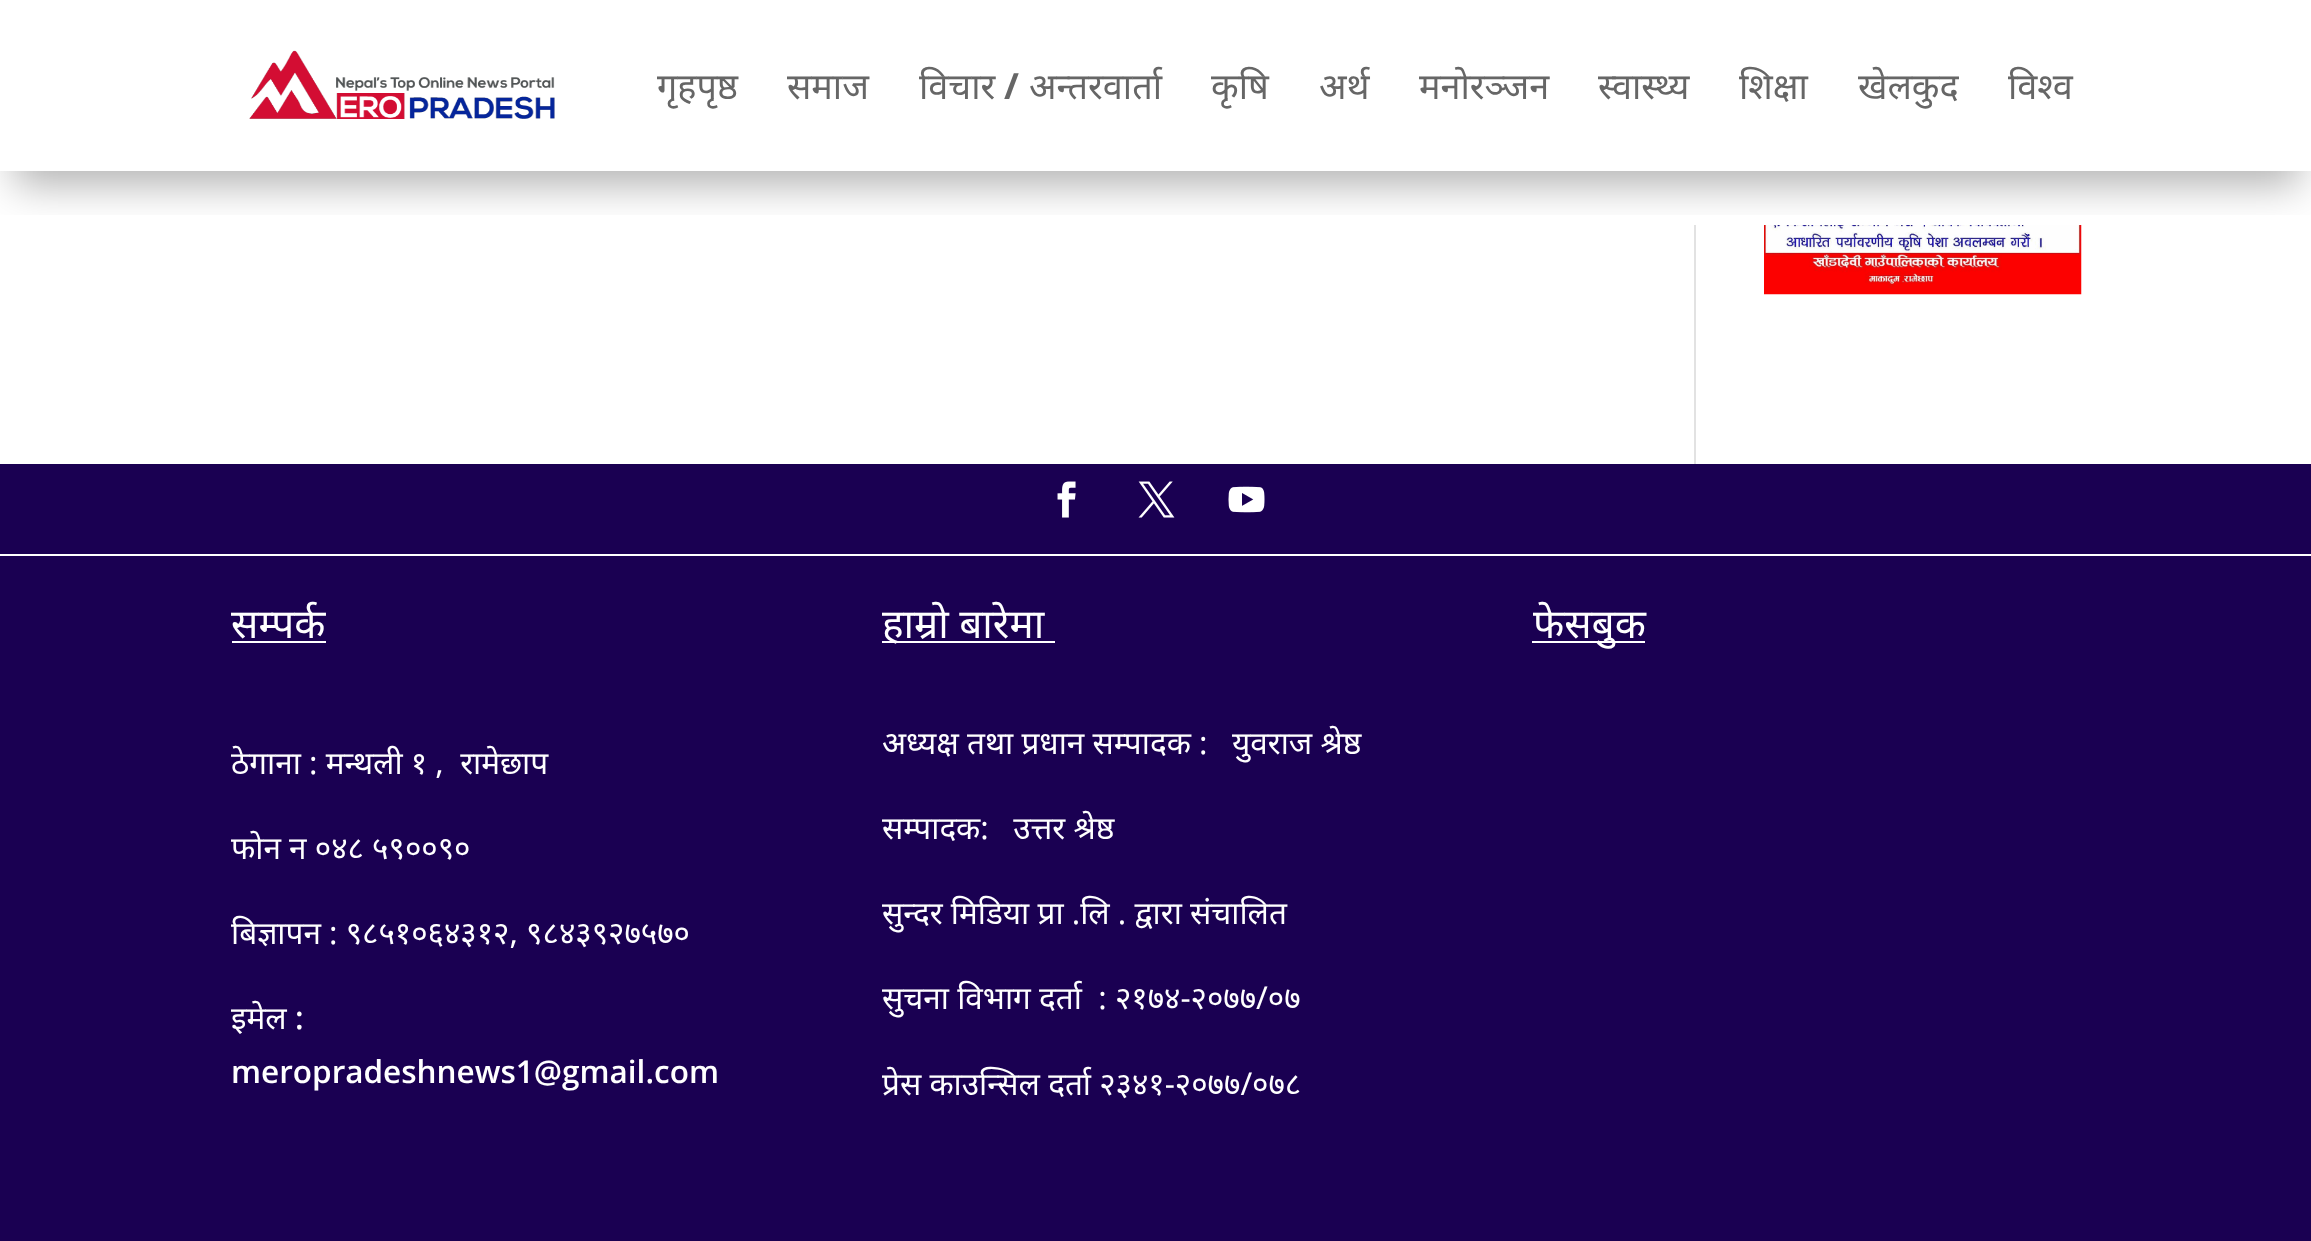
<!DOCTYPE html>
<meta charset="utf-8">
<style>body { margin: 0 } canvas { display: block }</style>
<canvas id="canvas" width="2311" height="1241"></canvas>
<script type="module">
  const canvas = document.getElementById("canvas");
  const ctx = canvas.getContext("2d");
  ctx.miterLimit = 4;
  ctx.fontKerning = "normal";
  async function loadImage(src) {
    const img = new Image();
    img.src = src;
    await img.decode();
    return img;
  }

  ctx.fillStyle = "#ffffff";
  ctx.fillRect(0, 0, 2311, 1241);
  ctx.fillStyle = "#e2e2e2";
  ctx.fillRect(1694, 225, 2, 239);
  ctx.drawImage(await loadImage("img2.png"), 1764, 225, 318, 70);
  ctx.save();
  ctx.beginPath();
  ctx.rect(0, 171, 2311, 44);
  ctx.clip();
  ctx.fillStyle = "rgba(0, 0, 0, 0.3)";
  ctx.filter = "blur(20px)";
  ctx.beginPath();
  ctx.rect(14, 41, 2286, 144);
  ctx.fill();
  ctx.filter = "none";
  ctx.restore();
  ctx.drawImage(await loadImage("img1.png"), 249, 50, 306, 69);
  ctx.font = "36px Noto Sans";
  ctx.fillStyle = "#666666";
  ctx.fillText("गृहपृष्ठ", 657, 99);
  ctx.fillText("समाज", 787, 99);
  ctx.fillText("विचार", 919, 99);
  ctx.font = "bold 36px Open Sans";
  ctx.fillText("/", 1004, 99);
  ctx.font = "36px Noto Sans";
  ctx.fillText("अन्तरवार्ता", 1029, 99);
  ctx.fillText("कृषि", 1211, 99);
  ctx.fillText("अर्थ", 1319, 99);
  ctx.fillText("मनोरञ्जन", 1419, 99);
  ctx.fillText("स्वास्थ्य", 1598, 99);
  ctx.fillText("शिक्षा", 1739, 99);
  ctx.fillText("खेलकुद", 1858, 99);
  ctx.fillText("विश्व", 2008, 99);
  ctx.fillStyle = "#1a0052";
  ctx.fillRect(0, 464, 2311, 90);
  ctx.drawImage(await loadImage("img3.png"), 1057, 481, 19, 37);
  ctx.drawImage(await loadImage("img4.png"), 1138, 481, 37, 37);
  ctx.drawImage(await loadImage("img5.png"), 1228, 486, 37, 27);
  ctx.fillRect(0, 556, 2311, 685);
  ctx.font = "40.5px Noto Sans";
  ctx.fillStyle = "#ffffff";
  ctx.fillText("सम्पर्क", 231, 638);
  ctx.fillRect(232, 641, 94, 2);
  ctx.font = "31.5px Noto Sans";
  ctx.fillText("ठेगाना : मन्थली १ ,  रामेछाप", 231, 774);
  ctx.fillText("फोन न ०४८ ५९००९०", 231, 859);
  ctx.fillText("बिज्ञापन : ९८५१०६४३१२, ९८४३९२७५७०", 231, 944);
  ctx.fillText("इमेल", 231, 1029);
  ctx.font = "600 31.5px Open Sans";
  ctx.fillText(":", 295, 1029);
  ctx.fillText("meropradeshnews1@gmail.com", 231, 1083);
  ctx.fillRect(882, 641, 173, 2);
  ctx.font = "40.5px Noto Sans";
  ctx.fillText("हाम्रो बारेमा", 882, 638);
  ctx.font = "31.5px Noto Sans";
  ctx.fillText("अध्यक्ष तथा प्रधान सम्पादक :   युवराज श्रेष्ठ", 882, 754);
  ctx.fillText("सम्पादक:   उत्तर श्रेष्ठ", 882, 839);
  ctx.fillText("सुन्दर मिडिया प्रा .लि . द्वारा संचालित", 882, 924);
  ctx.fillText("सुचना विभाग दर्ता  : २१७४-२०७७/०७", 882, 1009);
  ctx.fillText("प्रेस काउन्सिल दर्ता २३४१-२०७७/०७८", 882, 1095);
  ctx.fillRect(1532, 641, 113, 2);
  ctx.font = "40.5px Noto Sans";
  ctx.fillText("फेसबुक", 1533, 638);
</script>
